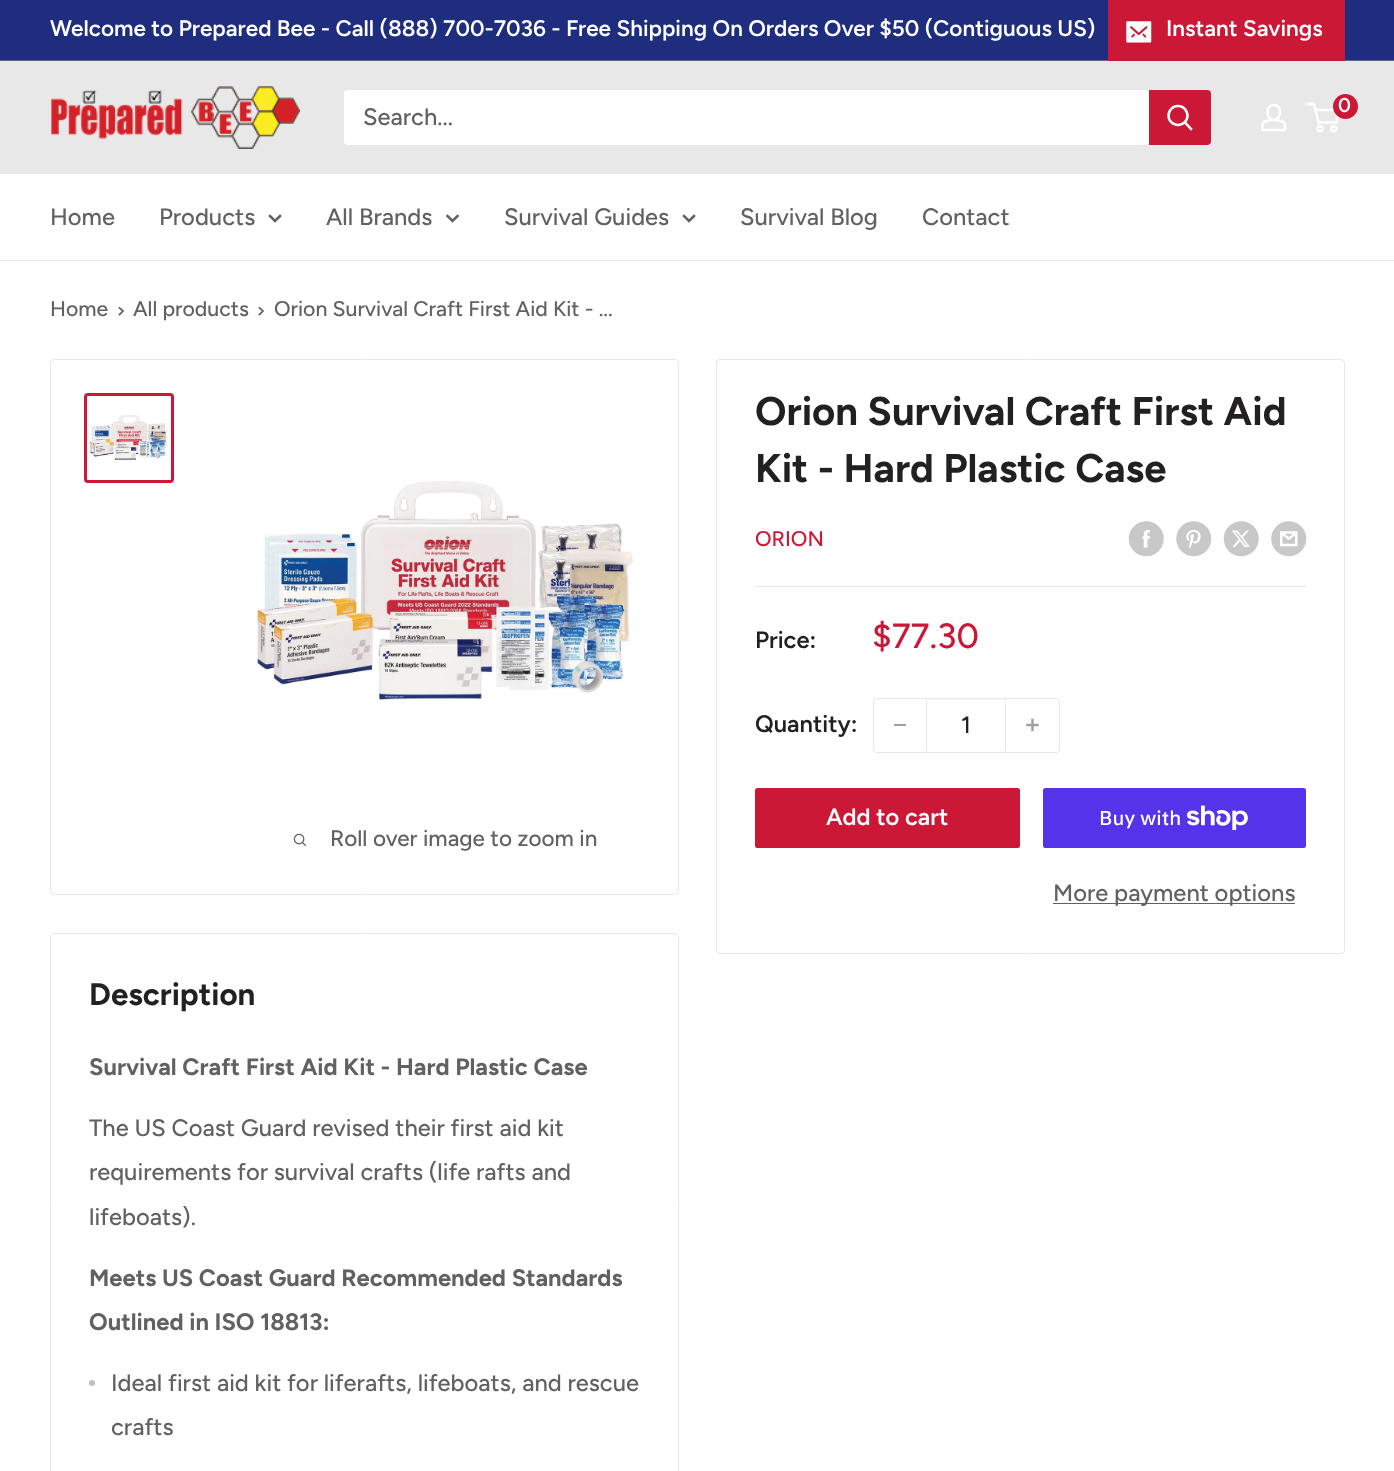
<!DOCTYPE html>
<meta charset="utf-8">
<style>body { margin: 0 } canvas { display: block }</style>
<canvas id="canvas" width="1394" height="1471"></canvas>
<script type="module">
  const canvas = document.getElementById("canvas");
  const ctx = canvas.getContext("2d");
  ctx.miterLimit = 4;
  ctx.fontKerning = "normal";
  async function loadImage(src) {
    const img = new Image();
    img.src = src;
    await img.decode();
    return img;
  }

  ctx.fillStyle = "#ffffff";
  ctx.fillRect(0, 0, 1394, 1471);
  ctx.fillStyle = "#1e2d7d";
  ctx.fillRect(0, 0, 1394, 60);
  ctx.fillStyle = "#5b659d";
  ctx.fillRect(0, 60, 1394, 1);
  ctx.font = "600 22.5px Figtree";
  ctx.fillStyle = "#ffffff";
  ctx.fillText("Welcome to Prepared Bee - Call (888) 700-7036 - Free Shipping On Orders Over $50 (Contiguous US)", 50, 36);
  ctx.fillStyle = "#cb1836";
  ctx.fillRect(1108, 0, 237, 61);
  ctx.drawImage(await loadImage("img1.png"), 1126, 21, 26, 22);
  ctx.fillStyle = "#ffffff";
  ctx.fillText("Instant Savings", 1166, 36);
  ctx.fillStyle = "#e8e8e8";
  ctx.fillRect(0, 61, 1394, 113);
  ctx.drawImage(await loadImage("img2.png"), 51, 86, 249, 63);
  ctx.drawImage(await loadImage("img3.png"), 1261, 103, 26, 29);
  ctx.beginPath();
  ctx.arc(1320, 128.8, 2.5, 0, Math.PI * 2);
  ctx.strokeStyle = "#ffffff";
  ctx.lineWidth = 2.5;
  ctx.stroke();
  ctx.beginPath();
  ctx.arc(1333.8, 128.8, 2.5, 0, Math.PI * 2);
  ctx.stroke();
  ctx.beginPath();
  ctx.moveTo(1315.5, 110);
  ctx.lineTo(1338, 110);
  ctx.lineTo(1336.5, 122.5);
  ctx.lineTo(1318.5, 122.5);
  ctx.lineTo(1314, 104);
  ctx.lineTo(1306, 104);
  ctx.stroke();
  ctx.fillStyle = "#cb1836";
  ctx.beginPath();
  ctx.arc(1345.5, 106.5, 12.5, 0, Math.PI * 2);
  ctx.fill();
  ctx.font = "600 20px Figtree";
  ctx.fillStyle = "#ffffff";
  ctx.fillText("0", 1338, 112);
  ctx.beginPath();
  ctx.roundRect(344, 90, 867, 55, 4);
  ctx.fill();
  ctx.font = "500 23.75px Figtree";
  ctx.fillStyle = "#616161";
  ctx.fillText("Search...", 363, 125);
  ctx.fillStyle = "#cb1836";
  ctx.beginPath();
  ctx.roundRect(1149, 90, 62, 55, [0, 4, 4, 0]);
  ctx.fill();
  ctx.beginPath();
  ctx.moveTo(1191, 129);
  ctx.lineTo(1185, 122.5);
  ctx.lineCap = "square";
  ctx.stroke();
  ctx.beginPath();
  ctx.arc(1178, 115.5, 9.5, 0, Math.PI * 2);
  ctx.stroke();
  ctx.fillStyle = "#e8e8e8";
  ctx.fillRect(0, 260, 1394, 1);
  ctx.fillStyle = "#616161";
  ctx.fillText("Home", 50, 225);
  ctx.fillText("Products", 159, 225);
  ctx.beginPath();
  ctx.moveTo(280, 216);
  ctx.lineTo(275, 221);
  ctx.lineTo(270, 216);
  ctx.strokeStyle = "#616161";
  ctx.stroke();
  ctx.fillText("All Brands", 326, 225);
  ctx.beginPath();
  ctx.moveTo(457.5, 216);
  ctx.lineTo(452.5, 221);
  ctx.lineTo(447.5, 216);
  ctx.stroke();
  ctx.fillText("Survival Guides", 504, 225);
  ctx.beginPath();
  ctx.moveTo(694, 216);
  ctx.lineTo(689, 221);
  ctx.lineTo(684, 216);
  ctx.stroke();
  ctx.fillText("Survival Blog", 740, 225);
  ctx.fillText("Contact", 922, 225);
  ctx.font = "500 21.25px Figtree";
  ctx.fillText("Home", 50, 316);
  ctx.beginPath();
  ctx.moveTo(119.5, 308);
  ctx.lineTo(123, 311);
  ctx.lineTo(119.5, 314.5);
  ctx.lineWidth = 1.7;
  ctx.stroke();
  ctx.fillText("All products", 133, 316);
  ctx.beginPath();
  ctx.moveTo(259.5, 308);
  ctx.lineTo(263, 311);
  ctx.lineTo(259.5, 314.5);
  ctx.stroke();
  ctx.fillText("Orion Survival Craft First Aid Kit - ...", 274, 316);
  ctx.beginPath();
  ctx.roundRect(50.5, 359.5, 628, 535, 3.5);
  ctx.strokeStyle = "#e8e8e8";
  ctx.lineWidth = 1;
  ctx.stroke();
  ctx.beginPath();
  ctx.roundRect(85.5, 394.5, 87, 87, 2.5);
  ctx.strokeStyle = "#cb1836";
  ctx.lineWidth = 3;
  ctx.stroke();
  ctx.drawImage(await loadImage("img4.png"), 89, 414, 79, 48);
  ctx.drawImage(await loadImage("img5.png"), 257, 480, 377, 222);
  ctx.drawImage(await loadImage("img6.png"), 293, 833, 14, 14);
  ctx.font = "500 22.5px Figtree";
  ctx.fillText("Roll over image to zoom in", 330, 846);
  ctx.beginPath();
  ctx.roundRect(716.5, 359.5, 628, 594, 3.5);
  ctx.strokeStyle = "#e8e8e8";
  ctx.lineWidth = 1;
  ctx.stroke();
  ctx.font = "bold 40px Figtree";
  ctx.fillStyle = "#222021";
  ctx.fillText("Orion Survival Craft First Aid", 755, 425);
  ctx.fillText("Kit - Hard Plastic Case", 755, 482);
  ctx.font = "500 21.25px Figtree";
  ctx.fillStyle = "#cb1836";
  ctx.fillText("ORION", 755, 546);
  ctx.drawImage(await loadImage("img7.png"), 1128, 521, 36, 36);
  ctx.drawImage(await loadImage("img8.png"), 1176, 521, 36, 36);
  ctx.drawImage(await loadImage("img9.png"), 1223, 521, 36, 36);
  ctx.drawImage(await loadImage("img10.png"), 1271, 521, 36, 36);
  ctx.fillStyle = "#e8e8e8";
  ctx.fillRect(755, 586, 551, 1);
  ctx.font = "600 23.75px Figtree";
  ctx.fillStyle = "#222021";
  ctx.fillText("Price:", 755, 648);
  ctx.font = "500 35px Figtree";
  ctx.fillStyle = "#cb1836";
  ctx.fillText("$77.30", 872, 648);
  ctx.font = "600 23.75px Figtree";
  ctx.fillStyle = "#222021";
  ctx.fillText("Quantity:", 755, 732);
  ctx.beginPath();
  ctx.roundRect(873.5, 698.5, 186, 54, 3.5);
  ctx.stroke();
  ctx.fillStyle = "#a0a0a0";
  ctx.fillRect(894, 724, 12, 2);
  ctx.fillStyle = "#f6f6f6";
  ctx.fillRect(928, 699, 77, 1);
  ctx.fillStyle = "#e8e8e8";
  ctx.fillRect(1005, 699, 1, 52);
  ctx.fillRect(926, 699, 1, 52);
  ctx.font = "500 23.75px Figtree";
  ctx.fillStyle = "#222021";
  ctx.fillText("1", 961, 733);
  ctx.drawImage(await loadImage("img11.png"), 1026, 718, 13, 14);
  ctx.fillStyle = "#cb1836";
  ctx.beginPath();
  ctx.roundRect(755, 788, 265, 60, 2.5);
  ctx.fill();
  ctx.font = "600 23.75px Figtree";
  ctx.fillStyle = "#ffffff";
  ctx.fillText("Add to cart", 826, 825);
  ctx.fillStyle = "#5433eb";
  ctx.beginPath();
  ctx.roundRect(1043, 788, 263, 60, 2.5);
  ctx.fill();
  ctx.font = "500 20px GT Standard";
  ctx.fillStyle = "#ffffff";
  ctx.fillText("Buy with", 1099, 825);
  ctx.drawImage(await loadImage("img12.png"), 1186, 805, 62, 25);
  ctx.fillStyle = "#616161";
  ctx.fillRect(1053, 903, 242, 1);
  ctx.font = "500 23.75px Figtree";
  ctx.fillText("More payment options", 1053, 901);
  ctx.beginPath();
  ctx.roundRect(50.5, 933.5, 628, 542, 3.5);
  ctx.stroke();
  ctx.font = "bold 31.25px Figtree";
  ctx.fillStyle = "#222021";
  ctx.fillText("Description", 89, 1005);
  ctx.font = "bold 23.75px Figtree";
  ctx.fillStyle = "#616161";
  ctx.fillText("Survival Craft First Aid Kit - Hard Plastic Case", 89, 1075);
  ctx.font = "500 23.75px Figtree";
  ctx.fillText("The US Coast Guard revised their first aid kit", 89, 1136);
  ctx.fillText("requirements for survival crafts (life rafts and", 89, 1180);
  ctx.fillText("lifeboats).", 89, 1225);
  ctx.font = "bold 23.75px Figtree";
  ctx.fillText("Meets US Coast Guard Recommended Standards", 89, 1286);
  ctx.fillText("Outlined in ISO 18813:", 89, 1330);
  ctx.fillStyle = "#c0c0c0";
  ctx.beginPath();
  ctx.arc(92, 1383, 3, 0, Math.PI * 2);
  ctx.fill();
  ctx.font = "500 23.75px Figtree";
  ctx.fillStyle = "#616161";
  ctx.fillText("Ideal first aid kit for liferafts, lifeboats, and rescue", 111, 1391);
  ctx.fillText("crafts", 111, 1435);
</script>
